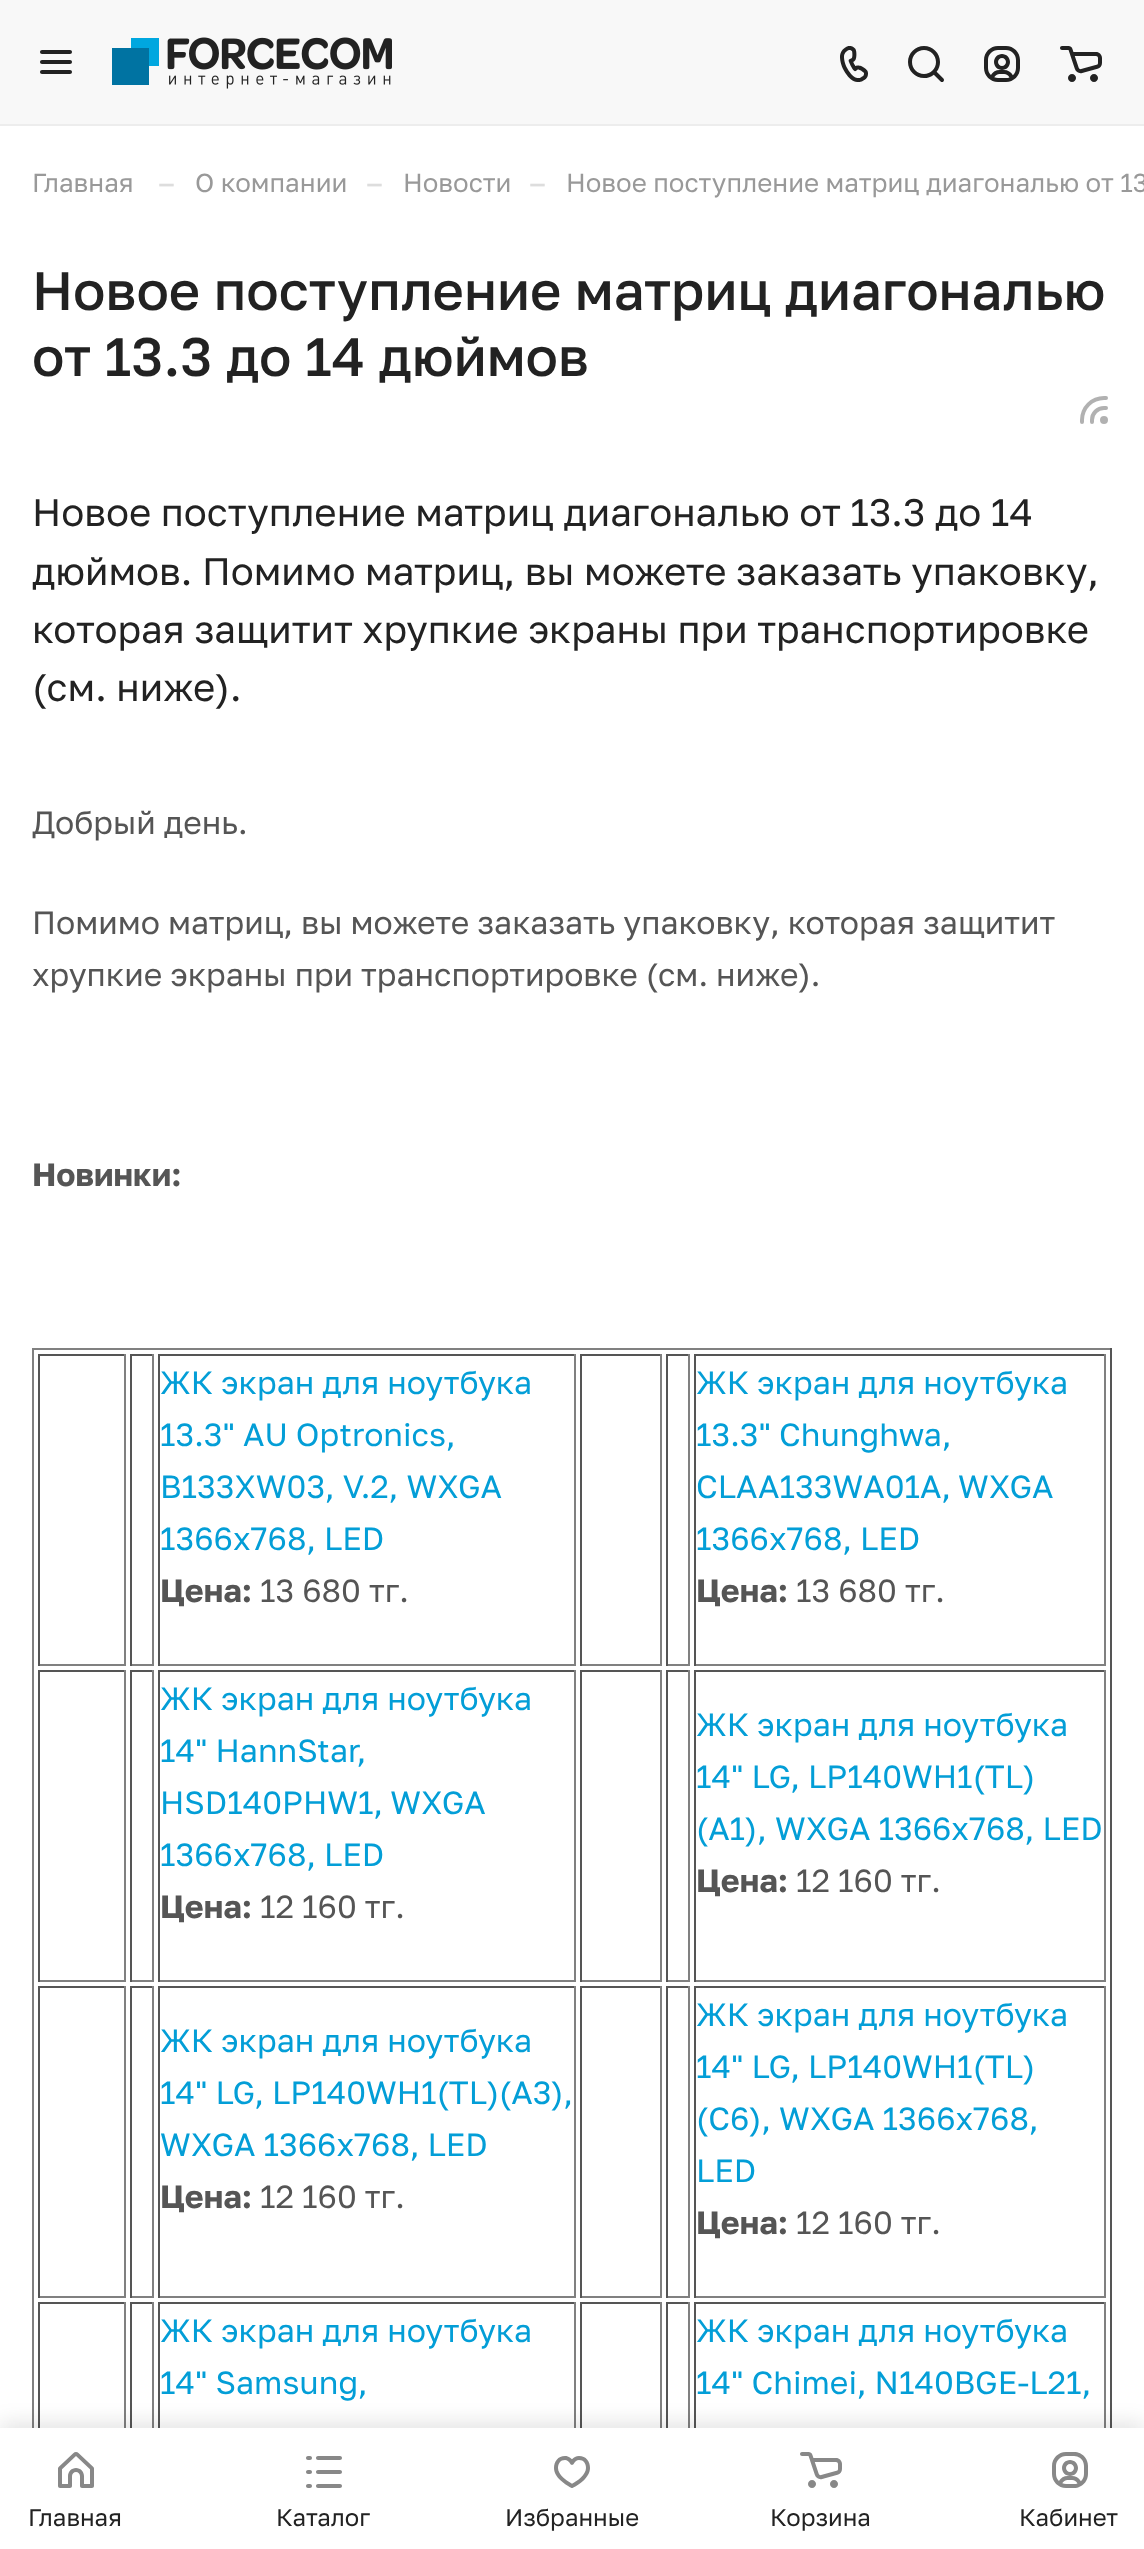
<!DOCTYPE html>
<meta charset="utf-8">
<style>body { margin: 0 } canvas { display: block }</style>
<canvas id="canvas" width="1144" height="2549"></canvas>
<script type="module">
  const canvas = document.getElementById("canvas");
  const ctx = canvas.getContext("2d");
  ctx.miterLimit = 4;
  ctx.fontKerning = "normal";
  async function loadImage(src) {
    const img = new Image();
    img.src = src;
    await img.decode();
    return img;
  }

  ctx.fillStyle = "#ffffff";
  ctx.fillRect(0, 0, 1144, 2549);
  ctx.fillStyle = "#ededed";
  ctx.fillRect(0, 124, 1144, 2);
  ctx.fillStyle = "#f8f8f8";
  ctx.fillRect(0, 0, 1144, 124);
  ctx.drawImage(await loadImage("img1.png"), 40, 50, 32, 24);
  ctx.drawImage(await loadImage("img2.png"), 112, 37, 280, 52);
  ctx.drawImage(await loadImage("img3.png"), 840, 46, 28, 36);
  ctx.drawImage(await loadImage("img4.png"), 908, 46, 36, 36);
  ctx.drawImage(await loadImage("img5.png"), 984, 46, 36, 36);
  ctx.drawImage(await loadImage("img6.png"), 1060, 46, 42, 36);
  ctx.font = "26px Golos Text";
  ctx.fillStyle = "#999999";
  ctx.fillText("Главная", 32, 192);
  ctx.font = "32px Golos Text";
  ctx.fillStyle = "#dddddd";
  ctx.fillText("–", 158, 194);
  ctx.font = "26px Golos Text";
  ctx.fillStyle = "#999999";
  ctx.fillText("О компании", 195, 192);
  ctx.font = "32px Golos Text";
  ctx.fillStyle = "#dddddd";
  ctx.fillText("–", 366, 194);
  ctx.font = "26px Golos Text";
  ctx.fillStyle = "#999999";
  ctx.fillText("Новости", 403, 192);
  ctx.font = "32px Golos Text";
  ctx.fillStyle = "#dddddd";
  ctx.fillText("–", 529, 194);
  ctx.font = "26px Golos Text";
  ctx.fillStyle = "#999999";
  ctx.fillText("Новое поступление матриц диагональю от 13", 566, 192);
  ctx.font = "500 54.1px Golos Text";
  ctx.fillStyle = "#222222";
  ctx.fillText("Новое поступление матриц диагональю", 32, 310);
  ctx.fillText("от 13.3 до 14 дюймов", 32, 376);
  ctx.drawImage(await loadImage("img7.png"), 1080, 396, 28, 28);
  ctx.font = "38.4px Golos Text";
  ctx.fillText("Новое поступление матриц диагональю от 13.3 до 14", 32, 526);
  ctx.fillText("дюймов. Помимо матриц, вы можете заказать упаковку,", 32, 585);
  ctx.fillText("которая защитит хрупкие экраны при транспортировке", 32, 643);
  ctx.fillText("(см. ниже).", 32, 701);
  ctx.font = "32px Golos Text";
  ctx.fillStyle = "#555555";
  ctx.fillText("Добрый день.", 32, 834);
  ctx.fillText("Помимо матриц, вы можете заказать упаковку, которая защитит", 32, 934);
  ctx.fillText("хрупкие экраны при транспортировке (см. ниже).", 32, 986);
  ctx.font = "bold 32px Golos Text";
  ctx.fillText("Новинки:", 32, 1186);
  ctx.fillStyle = "#808080";
  ctx.fillRect(32, 1348, 1080, 2);
  ctx.fillStyle = "#555555";
  ctx.fillRect(1110, 1348, 2, 1080);
  ctx.fillStyle = "#808080";
  ctx.fillRect(32, 1348, 2, 1080);
  ctx.fillStyle = "#555555";
  ctx.fillRect(38, 1354, 88, 2);
  ctx.fillStyle = "#808080";
  ctx.fillRect(124, 1354, 2, 312);
  ctx.fillRect(38, 1664, 88, 2);
  ctx.fillStyle = "#555555";
  ctx.fillRect(38, 1354, 2, 312);
  ctx.fillRect(130, 1354, 24, 2);
  ctx.fillStyle = "#808080";
  ctx.fillRect(152, 1354, 2, 312);
  ctx.fillRect(130, 1664, 24, 2);
  ctx.fillStyle = "#555555";
  ctx.fillRect(130, 1354, 2, 312);
  ctx.fillRect(158, 1354, 418, 2);
  ctx.fillStyle = "#808080";
  ctx.fillRect(574, 1354, 2, 312);
  ctx.fillRect(158, 1664, 418, 2);
  ctx.fillStyle = "#555555";
  ctx.fillRect(158, 1354, 2, 312);
  ctx.font = "32px Golos Text";
  ctx.fillStyle = "#039ed7";
  ctx.fillText("ЖК экран для ноутбука", 160, 1394);
  ctx.fillText("13.3\" AU Optronics,", 160, 1446);
  ctx.fillText("B133XW03, V.2, WXGA", 160, 1498);
  ctx.fillText("1366х768, LED", 160, 1550);
  ctx.font = "bold 32px Golos Text";
  ctx.fillStyle = "#555555";
  ctx.fillText("Цена:", 160, 1602);
  ctx.font = "32px Golos Text";
  ctx.fillText("13 680 тг.", 260, 1602);
  ctx.fillRect(580, 1354, 82, 2);
  ctx.fillStyle = "#808080";
  ctx.fillRect(660, 1354, 2, 312);
  ctx.fillRect(580, 1664, 82, 2);
  ctx.fillStyle = "#555555";
  ctx.fillRect(580, 1354, 2, 312);
  ctx.fillRect(666, 1354, 24, 2);
  ctx.fillStyle = "#808080";
  ctx.fillRect(688, 1354, 2, 312);
  ctx.fillRect(666, 1664, 24, 2);
  ctx.fillStyle = "#555555";
  ctx.fillRect(666, 1354, 2, 312);
  ctx.fillRect(694, 1354, 412, 2);
  ctx.fillStyle = "#808080";
  ctx.fillRect(1104, 1354, 2, 312);
  ctx.fillRect(694, 1664, 412, 2);
  ctx.fillStyle = "#555555";
  ctx.fillRect(694, 1354, 2, 312);
  ctx.fillStyle = "#039ed7";
  ctx.fillText("ЖК экран для ноутбука", 696, 1394);
  ctx.fillText("13.3\" Chunghwa,", 696, 1446);
  ctx.wordSpacing = "-1px";
  ctx.fillText("CLAA133WA01A, WXGA", 696, 1498);
  ctx.wordSpacing = "0px";
  ctx.fillText("1366х768, LED", 696, 1550);
  ctx.font = "bold 32px Golos Text";
  ctx.fillStyle = "#555555";
  ctx.fillText("Цена:", 696, 1602);
  ctx.font = "32px Golos Text";
  ctx.fillText("13 680 тг.", 796, 1602);
  ctx.fillRect(38, 1670, 88, 2);
  ctx.fillStyle = "#808080";
  ctx.fillRect(124, 1670, 2, 312);
  ctx.fillRect(38, 1980, 88, 2);
  ctx.fillStyle = "#555555";
  ctx.fillRect(38, 1670, 2, 312);
  ctx.fillRect(130, 1670, 24, 2);
  ctx.fillStyle = "#808080";
  ctx.fillRect(152, 1670, 2, 312);
  ctx.fillRect(130, 1980, 24, 2);
  ctx.fillStyle = "#555555";
  ctx.fillRect(130, 1670, 2, 312);
  ctx.fillRect(158, 1670, 418, 2);
  ctx.fillStyle = "#808080";
  ctx.fillRect(574, 1670, 2, 312);
  ctx.fillRect(158, 1980, 418, 2);
  ctx.fillStyle = "#555555";
  ctx.fillRect(158, 1670, 2, 312);
  ctx.fillStyle = "#039ed7";
  ctx.fillText("ЖК экран для ноутбука", 160, 1710);
  ctx.fillText("14\" HannStar,", 160, 1762);
  ctx.wordSpacing = "-1px";
  ctx.fillText("HSD140PHW1, WXGA", 160, 1814);
  ctx.wordSpacing = "0px";
  ctx.fillText("1366x768, LED", 160, 1866);
  ctx.font = "bold 32px Golos Text";
  ctx.fillStyle = "#555555";
  ctx.fillText("Цена:", 160, 1918);
  ctx.font = "32px Golos Text";
  ctx.fillText("12 160 тг.", 260, 1918);
  ctx.fillRect(580, 1670, 82, 2);
  ctx.fillStyle = "#808080";
  ctx.fillRect(660, 1670, 2, 312);
  ctx.fillRect(580, 1980, 82, 2);
  ctx.fillStyle = "#555555";
  ctx.fillRect(580, 1670, 2, 312);
  ctx.fillRect(666, 1670, 24, 2);
  ctx.fillStyle = "#808080";
  ctx.fillRect(688, 1670, 2, 312);
  ctx.fillRect(666, 1980, 24, 2);
  ctx.fillStyle = "#555555";
  ctx.fillRect(666, 1670, 2, 312);
  ctx.fillRect(694, 1670, 412, 2);
  ctx.fillStyle = "#808080";
  ctx.fillRect(1104, 1670, 2, 312);
  ctx.fillRect(694, 1980, 412, 2);
  ctx.fillStyle = "#555555";
  ctx.fillRect(694, 1670, 2, 312);
  ctx.fillStyle = "#039ed7";
  ctx.fillText("ЖК экран для ноутбука", 696, 1736);
  ctx.fillText("14\" LG, LP140WH1(TL)", 696, 1788);
  ctx.fillText("(A1), WXGA 1366x768, LED", 696, 1840);
  ctx.font = "bold 32px Golos Text";
  ctx.fillStyle = "#555555";
  ctx.fillText("Цена:", 696, 1892);
  ctx.font = "32px Golos Text";
  ctx.fillText("12 160 тг.", 796, 1892);
  ctx.fillRect(38, 1986, 88, 2);
  ctx.fillStyle = "#808080";
  ctx.fillRect(124, 1986, 2, 312);
  ctx.fillRect(38, 2296, 88, 2);
  ctx.fillStyle = "#555555";
  ctx.fillRect(38, 1986, 2, 312);
  ctx.fillRect(130, 1986, 24, 2);
  ctx.fillStyle = "#808080";
  ctx.fillRect(152, 1986, 2, 312);
  ctx.fillRect(130, 2296, 24, 2);
  ctx.fillStyle = "#555555";
  ctx.fillRect(130, 1986, 2, 312);
  ctx.fillRect(158, 1986, 418, 2);
  ctx.fillStyle = "#808080";
  ctx.fillRect(574, 1986, 2, 312);
  ctx.fillRect(158, 2296, 418, 2);
  ctx.fillStyle = "#555555";
  ctx.fillRect(158, 1986, 2, 312);
  ctx.fillStyle = "#039ed7";
  ctx.fillText("ЖК экран для ноутбука", 160, 2052);
  ctx.fillText("14\" LG, LP140WH1(TL)(A3),", 160, 2104);
  ctx.fillText("WXGA 1366x768, LED", 160, 2156);
  ctx.font = "bold 32px Golos Text";
  ctx.fillStyle = "#555555";
  ctx.fillText("Цена:", 160, 2208);
  ctx.font = "32px Golos Text";
  ctx.fillText("12 160 тг.", 260, 2208);
  ctx.fillRect(580, 1986, 82, 2);
  ctx.fillStyle = "#808080";
  ctx.fillRect(660, 1986, 2, 312);
  ctx.fillRect(580, 2296, 82, 2);
  ctx.fillStyle = "#555555";
  ctx.fillRect(580, 1986, 2, 312);
  ctx.fillRect(666, 1986, 24, 2);
  ctx.fillStyle = "#808080";
  ctx.fillRect(688, 1986, 2, 312);
  ctx.fillRect(666, 2296, 24, 2);
  ctx.fillStyle = "#555555";
  ctx.fillRect(666, 1986, 2, 312);
  ctx.fillRect(694, 1986, 412, 2);
  ctx.fillStyle = "#808080";
  ctx.fillRect(1104, 1986, 2, 312);
  ctx.fillRect(694, 2296, 412, 2);
  ctx.fillStyle = "#555555";
  ctx.fillRect(694, 1986, 2, 312);
  ctx.fillStyle = "#039ed7";
  ctx.fillText("ЖК экран для ноутбука", 696, 2026);
  ctx.fillText("14\" LG, LP140WH1(TL)", 696, 2078);
  ctx.fillText("(C6), WXGA 1366x768,", 696, 2130);
  ctx.fillText("LED", 696, 2182);
  ctx.font = "bold 32px Golos Text";
  ctx.fillStyle = "#555555";
  ctx.fillText("Цена:", 696, 2234);
  ctx.font = "32px Golos Text";
  ctx.fillText("12 160 тг.", 796, 2234);
  ctx.fillRect(38, 2302, 88, 2);
  ctx.fillStyle = "#808080";
  ctx.fillRect(124, 2302, 2, 126);
  ctx.fillStyle = "#555555";
  ctx.fillRect(38, 2302, 2, 126);
  ctx.fillRect(130, 2302, 24, 2);
  ctx.fillStyle = "#808080";
  ctx.fillRect(152, 2302, 2, 126);
  ctx.fillStyle = "#555555";
  ctx.fillRect(130, 2302, 2, 126);
  ctx.fillRect(158, 2302, 418, 2);
  ctx.fillStyle = "#808080";
  ctx.fillRect(574, 2302, 2, 126);
  ctx.fillStyle = "#555555";
  ctx.fillRect(158, 2302, 2, 126);
  ctx.fillStyle = "#039ed7";
  ctx.fillText("ЖК экран для ноутбука", 160, 2342);
  ctx.fillText("14\" Samsung,", 160, 2394);
  ctx.fillStyle = "#555555";
  ctx.fillRect(580, 2302, 82, 2);
  ctx.fillStyle = "#808080";
  ctx.fillRect(660, 2302, 2, 126);
  ctx.fillStyle = "#555555";
  ctx.fillRect(580, 2302, 2, 126);
  ctx.fillRect(666, 2302, 24, 2);
  ctx.fillStyle = "#808080";
  ctx.fillRect(688, 2302, 2, 126);
  ctx.fillStyle = "#555555";
  ctx.fillRect(666, 2302, 2, 126);
  ctx.fillRect(694, 2302, 412, 2);
  ctx.fillStyle = "#808080";
  ctx.fillRect(1104, 2302, 2, 126);
  ctx.fillStyle = "#555555";
  ctx.fillRect(694, 2302, 2, 126);
  ctx.fillStyle = "#039ed7";
  ctx.fillText("ЖК экран для ноутбука", 696, 2342);
  ctx.fillText("14\" Chimei, N140BGE-L21,", 696, 2394);
  ctx.fillStyle = "rgba(0, 0, 0, 0.1)";
  ctx.filter = "blur(10px)";
  ctx.beginPath();
  ctx.rect(0, 2422, 1144, 122);
  ctx.fill();
  ctx.filter = "none";
  ctx.fillStyle = "#ffffff";
  ctx.fillRect(0, 2428, 1144, 121);
  ctx.drawImage(await loadImage("img8.png"), 58, 2452, 36, 36);
  ctx.font = "24px Golos Text";
  ctx.fillStyle = "#222222";
  ctx.fillText("Главная", 28, 2526);
  ctx.drawImage(await loadImage("img9.png"), 306, 2456, 36, 32);
  ctx.fillText("Каталог", 276, 2526);
  ctx.drawImage(await loadImage("img10.png"), 554, 2456, 36, 32);
  ctx.fillText("Избранные", 505, 2526);
  ctx.drawImage(await loadImage("img11.png"), 800, 2452, 42, 36);
  ctx.fillText("Корзина", 770, 2526);
  ctx.drawImage(await loadImage("img12.png"), 1052, 2452, 36, 36);
  ctx.fillText("Кабинет", 1019, 2526);
</script>
